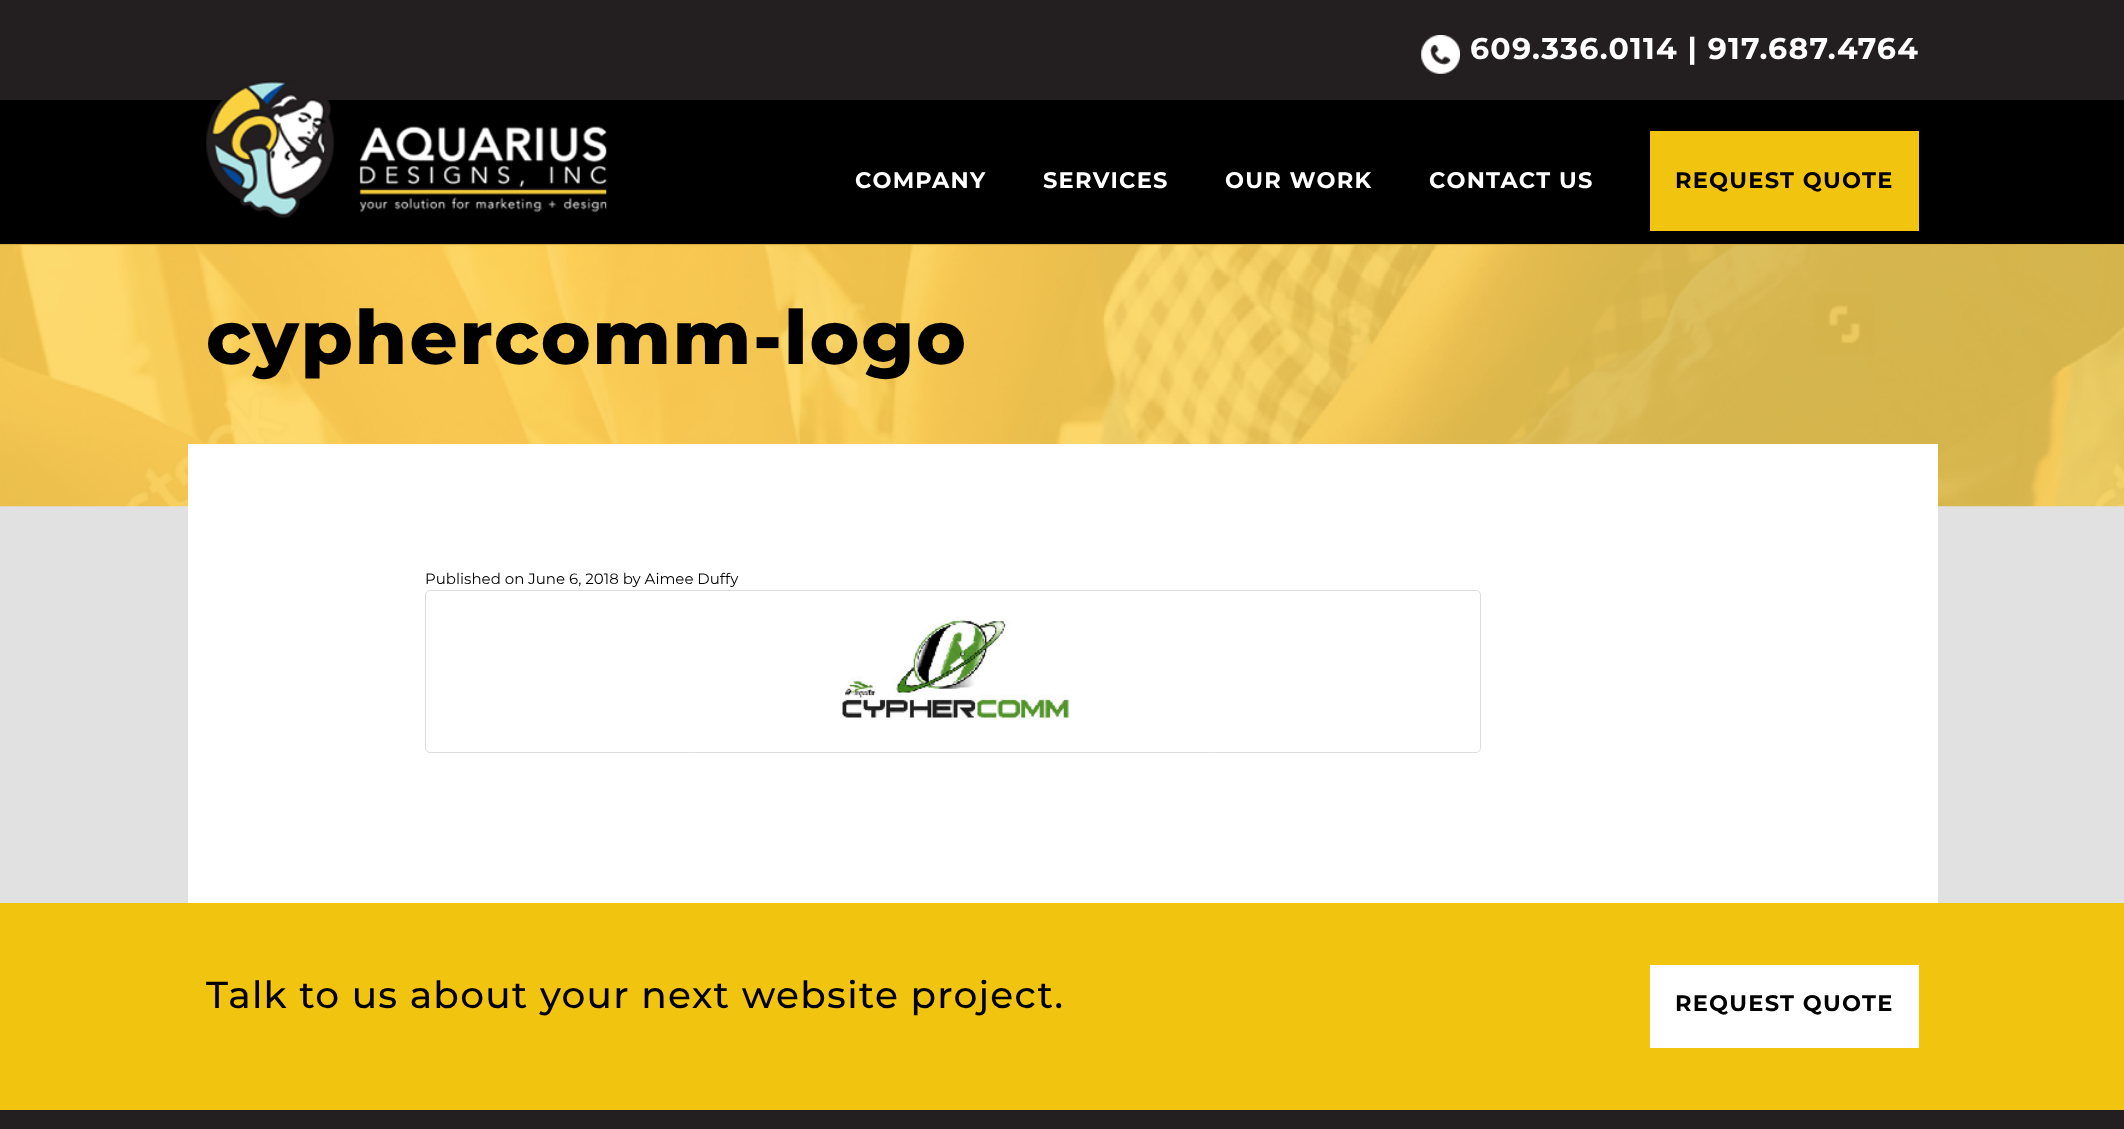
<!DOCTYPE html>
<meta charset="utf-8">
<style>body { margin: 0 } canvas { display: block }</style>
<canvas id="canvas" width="2124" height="1129"></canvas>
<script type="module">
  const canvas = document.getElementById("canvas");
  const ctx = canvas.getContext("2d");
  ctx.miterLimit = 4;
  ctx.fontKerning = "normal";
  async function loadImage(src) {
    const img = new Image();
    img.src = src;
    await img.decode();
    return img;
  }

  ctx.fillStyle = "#231f20";
  ctx.fillRect(0, 0, 2124, 1129);
  ctx.drawImage(await loadImage("img1.png"), 1421, 35, 39, 39);
  ctx.letterSpacing = "1.25px";
  ctx.font = "bold 30px Montserrat";
  ctx.fillStyle = "#ffffff";
  ctx.fillText("609.336.0114 | 917.687.4764", 1470, 59);
  ctx.fillStyle = "#000000";
  ctx.fillRect(0, 100, 2124, 144);
  ctx.drawImage(await loadImage("img2.png"), 206, 80, 401, 138);
  ctx.font = "bold 22.5px Montserrat";
  ctx.fillStyle = "#ffffff";
  ctx.fillText("COMPANY", 855, 188);
  ctx.fillText("SERVICES", 1043, 188);
  ctx.fillText("OUR WORK", 1225, 188);
  ctx.fillText("CONTACT US", 1429, 188);
  ctx.fillStyle = "#f1c40f";
  ctx.fillRect(1650, 131, 269, 100);
  ctx.fillStyle = "#000000";
  ctx.fillText("REQUEST QUOTE", 1675, 188);
  ctx.fillStyle = "#e1e1e1";
  ctx.fillRect(0, 506, 2124, 397);
  ctx.drawImage(await loadImage("img3.png"), 0, 244, 2124, 263);
  ctx.letterSpacing = "1.9px";
  ctx.font = "800 75px Montserrat";
  ctx.fillStyle = "#000000";
  ctx.fillText("cyphercomm-logo", 206, 364);
  ctx.fillStyle = "#ffffff";
  ctx.fillRect(188, 444, 1750, 459);
  ctx.letterSpacing = "0px";
  ctx.font = "15px Montserrat";
  ctx.fillStyle = "#000000";
  ctx.fillText("Published on June 6, 2018 by Aimee Duffy", 425, 584);
  ctx.beginPath();
  ctx.roundRect(425.5, 590.5, 1055, 162, 4.5);
  ctx.strokeStyle = "#dddddd";
  ctx.stroke();
  ctx.drawImage(await loadImage("img4.png"), 840, 616, 230, 103);
  ctx.fillStyle = "#f1c40f";
  ctx.fillRect(0, 903, 2124, 207);
  ctx.letterSpacing = "1.25px";
  ctx.font = "500 37.5px Montserrat";
  ctx.fillStyle = "#000000";
  ctx.fillText("Talk to us about your next website project.", 206, 1008);
  ctx.fillStyle = "#ffffff";
  ctx.fillRect(1650, 965, 269, 83);
  ctx.font = "bold 22.5px Montserrat";
  ctx.fillStyle = "#000000";
  ctx.fillText("REQUEST QUOTE", 1675, 1011);
</script>
